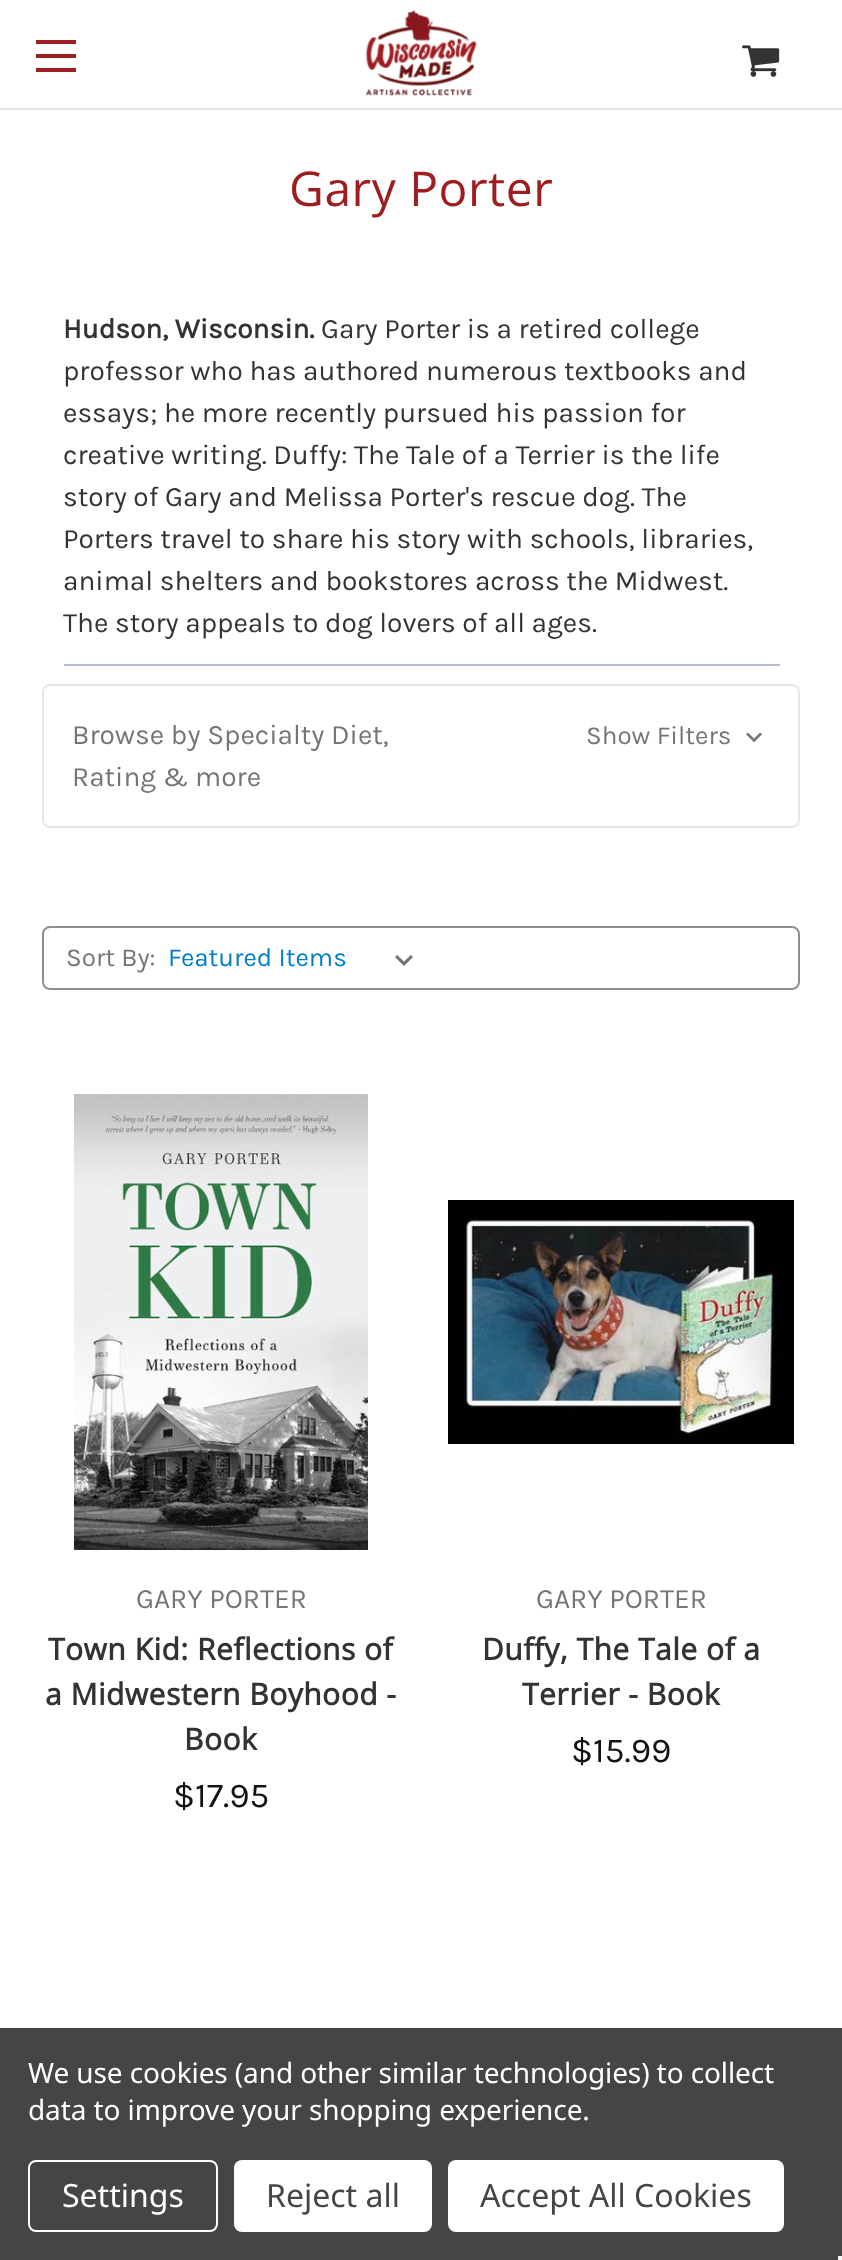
<!DOCTYPE html>
<meta charset="utf-8">
<style>body { margin: 0 } canvas { display: block }</style>
<canvas id="canvas" width="842" height="2260"></canvas>
<script type="module">
  const canvas = document.getElementById("canvas");
  const ctx = canvas.getContext("2d");
  ctx.miterLimit = 4;
  ctx.fontKerning = "normal";
  async function loadImage(src) {
    const img = new Image();
    img.src = src;
    await img.decode();
    return img;
  }

  ctx.fillStyle = "#ffffff";
  ctx.fillRect(0, 0, 842, 2260);
  ctx.fillStyle = "#e5e5e5";
  ctx.fillRect(0, 108, 842, 2);
  ctx.fillStyle = "#9e1d20";
  ctx.fillRect(36, 54, 40, 4);
  ctx.fillRect(36, 40, 40, 4);
  ctx.fillRect(36, 68, 40, 4);
  ctx.drawImage(await loadImage("img1.png"), 365, 10, 112, 86);
  ctx.drawImage(await loadImage("img2.png"), 742, 45, 38, 32);
  ctx.letterSpacing = "0.5px";
  ctx.font = "48px Open Sans";
  ctx.fillText("Gary Porter", 289, 206);
  ctx.letterSpacing = "0px";
  ctx.font = "bold 28px Karla";
  ctx.fillStyle = "#333333";
  ctx.fillText("Hudson, Wisconsin.", 63, 338);
  ctx.font = "28px Karla";
  ctx.fillText("Gary Porter is a retired college", 321, 338);
  ctx.fillText("professor who has authored numerous textbooks and", 63, 380);
  ctx.fillText("essays; he more recently pursued his passion for", 63, 422);
  ctx.fillText("creative writing. Duffy: The Tale of a Terrier is the life", 63, 464);
  ctx.fillText("story of Gary and Melissa Porter's rescue dog. The", 63, 506);
  ctx.fillText("Porters travel to share his story with schools, libraries,", 63, 548);
  ctx.fillText("animal shelters and bookstores across the Midwest.", 63, 590);
  ctx.fillText("The story appeals to dog lovers of all ages.", 63, 632);
  ctx.fillStyle = "#b4bad1";
  ctx.fillRect(64, 664, 716, 2);
  ctx.beginPath();
  ctx.roundRect(43, 685, 756, 142, 7);
  ctx.strokeStyle = "#e5e5e5";
  ctx.lineWidth = 2;
  ctx.stroke();
  ctx.fillStyle = "#757575";
  ctx.fillText("Browse by Specialty Diet,", 72, 744);
  ctx.fillText("Rating & more", 72, 786);
  ctx.font = "26px Karla";
  ctx.fillText("Show Filters", 586, 744);
  ctx.drawImage(await loadImage("img3.png"), 746, 732, 16, 11);
  ctx.beginPath();
  ctx.roundRect(43, 927, 756, 62, 7);
  ctx.strokeStyle = "#8f8f8f";
  ctx.stroke();
  ctx.fillText("Sort By:", 66, 966);
  ctx.beginPath();
  ctx.moveTo(411, 955);
  ctx.lineTo(404, 961.5);
  ctx.lineTo(397, 955);
  ctx.lineTo(395, 957);
  ctx.lineTo(404, 966);
  ctx.lineTo(413, 957);
  ctx.closePath();
  ctx.fill();
  ctx.fillStyle = "#007dc6";
  ctx.fillText("Featured Items", 168, 966);
  ctx.drawImage(await loadImage("img4.png"), 74, 1094, 294, 456);
  ctx.font = "28px Karla";
  ctx.fillStyle = "#757575";
  ctx.fillText("GARY PORTER", 136, 1608);
  ctx.letterSpacing = "0.5px";
  ctx.font = "bold 30px Open Sans";
  ctx.fillStyle = "#333333";
  ctx.fillText("Town Kid: Reflections of", 48, 1660);
  ctx.fillText("a Midwestern Boyhood -", 45, 1705);
  ctx.fillText("Book", 184, 1750);
  ctx.letterSpacing = "0px";
  ctx.font = "35px Karla";
  ctx.fillStyle = "#131313";
  ctx.fillText("$17.95", 173, 1807);
  ctx.drawImage(await loadImage("img5.png"), 448, 1200, 346, 244);
  ctx.font = "28px Karla";
  ctx.fillStyle = "#757575";
  ctx.fillText("GARY PORTER", 536, 1608);
  ctx.letterSpacing = "0.5px";
  ctx.font = "bold 30px Open Sans";
  ctx.fillStyle = "#333333";
  ctx.fillText("Duffy, The Tale of a", 482, 1660);
  ctx.fillText("Terrier - Book", 522, 1705);
  ctx.letterSpacing = "0px";
  ctx.font = "35px Karla";
  ctx.fillStyle = "#131313";
  ctx.fillText("$15.99", 571, 1762);
  ctx.fillStyle = "#454545";
  ctx.fillRect(0, 2028, 842, 232);
  ctx.letterSpacing = "-0.1px";
  ctx.font = "28px Noto Sans";
  ctx.fillStyle = "#ffffff";
  ctx.fillText("We use cookies (and other similar technologies) to collect", 28, 2083);
  ctx.fillText("data to improve your shopping experience.", 28, 2120);
  ctx.beginPath();
  ctx.roundRect(29, 2161, 188, 70, 7);
  ctx.strokeStyle = "#ffffff";
  ctx.stroke();
  ctx.letterSpacing = "0px";
  ctx.font = "32px Noto Sans";
  ctx.fillText("Settings", 62, 2207);
  ctx.beginPath();
  ctx.roundRect(234, 2160, 198, 72, 8);
  ctx.fill();
  ctx.fillStyle = "#454545";
  ctx.fillText("Reject all", 266, 2207);
  ctx.fillStyle = "#ffffff";
  ctx.beginPath();
  ctx.roundRect(448, 2160, 336, 72, 8);
  ctx.fill();
  ctx.fillStyle = "#454545";
  ctx.fillText("Accept All Cookies", 480, 2207);
  ctx.fillStyle = "#f5f5f5";
  ctx.fillRect(838, 2256, 4, 4);
</script>
